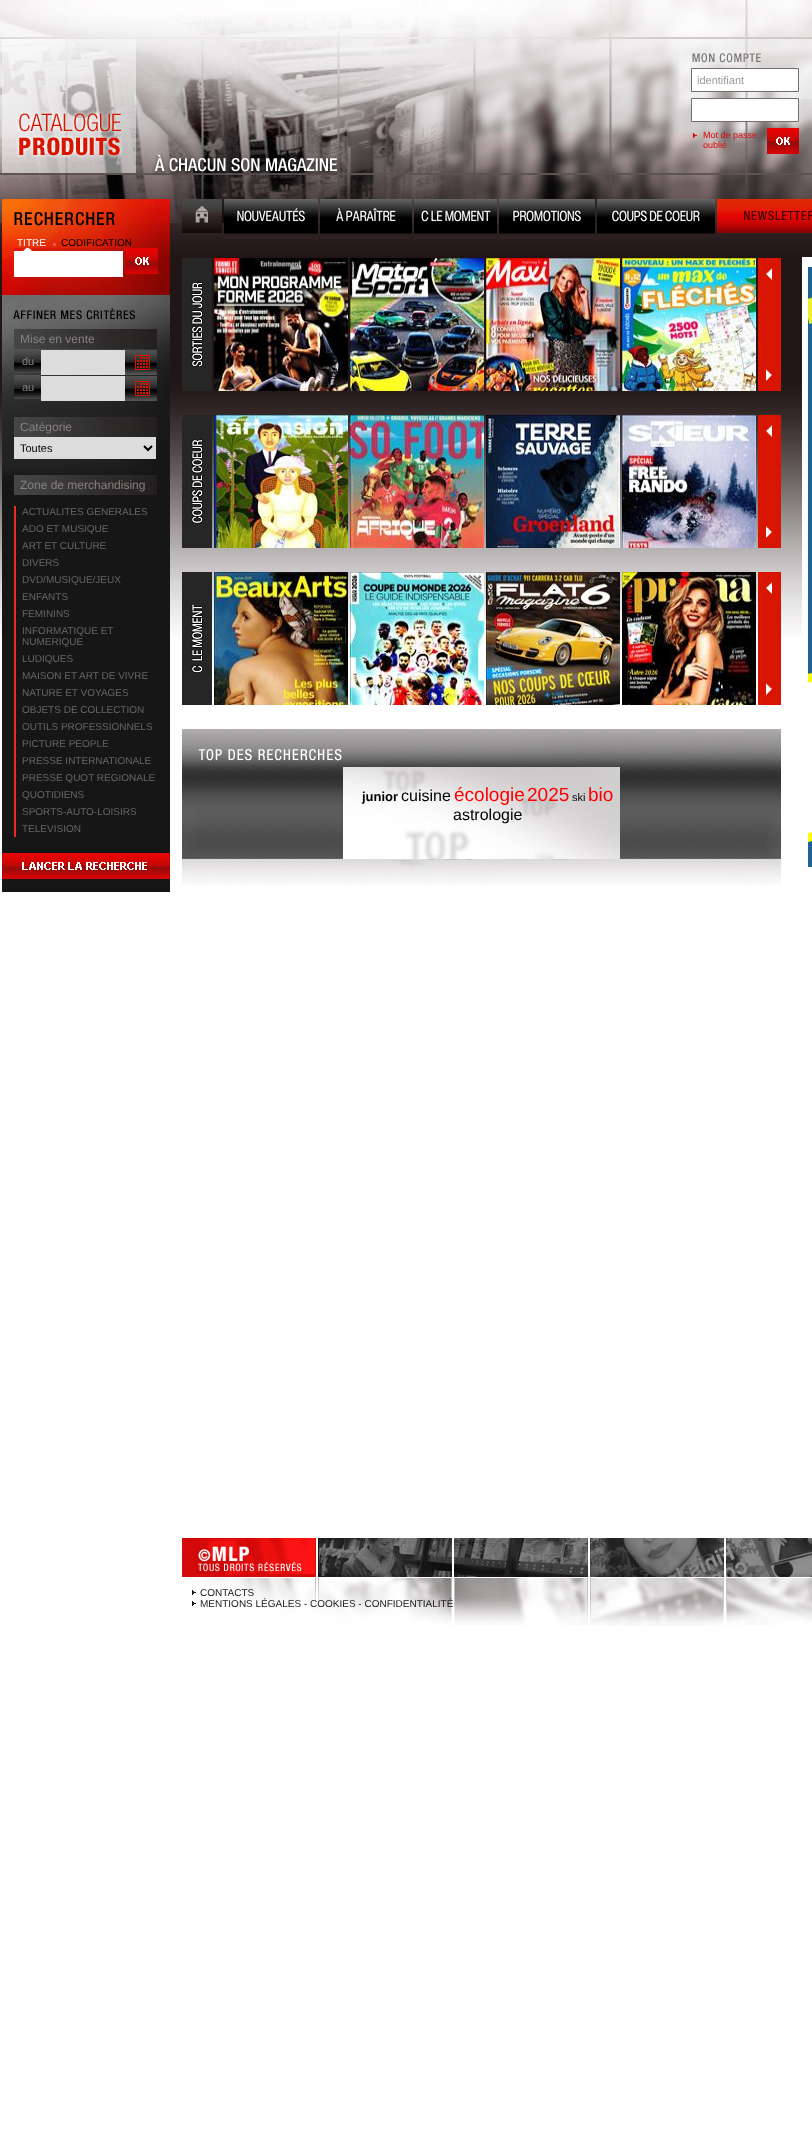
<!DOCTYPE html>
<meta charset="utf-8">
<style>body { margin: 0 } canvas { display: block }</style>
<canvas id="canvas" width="812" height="2139"></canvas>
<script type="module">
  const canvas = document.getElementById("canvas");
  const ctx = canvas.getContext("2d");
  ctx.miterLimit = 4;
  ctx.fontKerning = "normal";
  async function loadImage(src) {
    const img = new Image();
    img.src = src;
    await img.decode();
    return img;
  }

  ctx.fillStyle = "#ffffff";
  ctx.fillRect(0, 0, 812, 2139);
  ctx.drawImage(await loadImage("img1.png"), 0, 223, 812, 414);
  ctx.drawImage(await loadImage("img2.png"), 0, 0, 812, 223);
  ctx.drawImage(await loadImage("img3.png"), 2, 39, 134, 134);
  ctx.drawImage(await loadImage("img4.png"), 679, 39, 133, 60);
  ctx.beginPath();
  ctx.rect(691.5, 68.5, 107, 23);
  ctx.fill();
  ctx.strokeStyle = "#756d6d";
  ctx.stroke();
  ctx.font = "11px Liberation Sans";
  ctx.fillStyle = "#999999";
  ctx.fillText("identifiant", 697, 84);
  ctx.fillStyle = "#ffffff";
  ctx.beginPath();
  ctx.rect(691.5, 98.5, 107, 23);
  ctx.fill();
  ctx.stroke();
  ctx.drawImage(await loadImage("img5.png"), 693, 133, 4, 5);
  ctx.font = "9px Liberation Sans";
  ctx.fillStyle = "#d70a0a";
  ctx.fillText("Mot de passe", 703, 138);
  ctx.fillText("oublié", 703, 148);
  ctx.drawImage(await loadImage("img6.png"), 767, 128, 32, 26);
  ctx.drawImage(await loadImage("img7.png"), 152, 154, 187, 22);
  ctx.drawImage(await loadImage("img8.png"), 2, 199, 168, 96);
  ctx.font = "10px Liberation Sans";
  ctx.fillStyle = "#ffffff";
  ctx.fillText("TITRE", 17, 246);
  ctx.fillStyle = "#000000";
  ctx.fillText("CODIFICATION", 61, 246);
  ctx.drawImage(await loadImage("img9.png"), 14, 248, 109, 29);
  ctx.drawImage(await loadImage("img6.png"), 126, 248, 32, 26);
  ctx.fillStyle = "#161616";
  ctx.fillRect(2, 477, 168, 415);
  ctx.drawImage(await loadImage("img10.png"), 2, 295, 168, 182);
  ctx.drawImage(await loadImage("img11.png"), 14, 329, 143, 20);
  ctx.font = "12px Liberation Sans";
  ctx.fillStyle = "#868281";
  ctx.fillText("Mise en vente", 20, 343);
  ctx.drawImage(await loadImage("img12.png"), 14, 349, 27, 24);
  ctx.font = "11px Liberation Sans";
  ctx.fillText("du", 22, 365);
  ctx.fillStyle = "#dcdcdc";
  ctx.fillRect(41, 350, 84, 25);
  ctx.drawImage(await loadImage("img13.png"), 125, 350, 32, 25);
  ctx.drawImage(await loadImage("img12.png"), 14, 375, 27, 24);
  ctx.fillStyle = "#868281";
  ctx.fillText("au", 22, 391);
  ctx.fillStyle = "#dcdcdc";
  ctx.fillRect(41, 376, 84, 25);
  ctx.drawImage(await loadImage("img13.png"), 125, 376, 32, 25);
  ctx.drawImage(await loadImage("img11.png"), 14, 417, 143, 20);
  ctx.font = "12px Liberation Sans";
  ctx.fillStyle = "#868281";
  ctx.fillText("Catégorie", 20, 431);
  ctx.fillStyle = "#dcdcdc";
  ctx.fillRect(14, 437, 142, 22);
  ctx.beginPath();
  ctx.moveTo(144, 446);
  ctx.lineTo(148, 450);
  ctx.lineTo(152, 446);
  ctx.strokeStyle = "#000000";
  ctx.lineWidth = 2;
  ctx.stroke();
  ctx.font = "11px Liberation Sans";
  ctx.fillStyle = "#000000";
  ctx.fillText("Toutes", 20, 452);
  ctx.drawImage(await loadImage("img11.png"), 14, 475, 143, 20);
  ctx.font = "12px Liberation Sans";
  ctx.fillStyle = "#868281";
  ctx.fillText("Zone de merchandising", 20, 489);
  ctx.fillStyle = "#ed2a24";
  ctx.fillRect(14, 506, 2, 331);
  ctx.font = "10px Liberation Sans";
  ctx.fillStyle = "#666666";
  ctx.fillText("ACTUALITES GENERALES", 22, 515);
  ctx.fillText("ADO ET MUSIQUE", 22, 532);
  ctx.fillText("ART ET CULTURE", 22, 549);
  ctx.fillText("DIVERS", 22, 566);
  ctx.fillText("DVD/MUSIQUE/JEUX", 22, 583);
  ctx.fillText("ENFANTS", 22, 600);
  ctx.fillText("FEMININS", 22, 617);
  ctx.fillText("INFORMATIQUE ET", 22, 634);
  ctx.fillText("NUMERIQUE", 22, 645);
  ctx.fillText("LUDIQUES", 22, 662);
  ctx.fillText("MAISON ET ART DE VIVRE", 22, 679);
  ctx.fillText("NATURE ET VOYAGES", 22, 696);
  ctx.fillText("OBJETS DE COLLECTION", 22, 713);
  ctx.fillText("OUTILS PROFESSIONNELS", 22, 730);
  ctx.fillText("PICTURE PEOPLE", 22, 747);
  ctx.fillText("PRESSE INTERNATIONALE", 22, 764);
  ctx.fillText("PRESSE QUOT REGIONALE", 22, 781);
  ctx.fillText("QUOTIDIENS", 22, 798);
  ctx.fillText("SPORTS-AUTO-LOISIRS", 22, 815);
  ctx.fillText("TELEVISION", 22, 832);
  ctx.drawImage(await loadImage("img14.png"), 2, 853, 168, 26);
  ctx.drawImage(await loadImage("img15.png"), 182, 199, 40, 34);
  ctx.drawImage(await loadImage("img16.png"), 224, 199, 94, 39);
  ctx.drawImage(await loadImage("img17.png"), 320, 199, 92, 39);
  ctx.drawImage(await loadImage("img18.png"), 414, 199, 83, 39);
  ctx.drawImage(await loadImage("img19.png"), 499, 199, 96, 39);
  ctx.drawImage(await loadImage("img20.png"), 597, 199, 118, 35);
  ctx.drawImage(await loadImage("img21.png"), 717, 199, 95, 34);
  ctx.drawImage(await loadImage("img22.png"), 182, 258, 30, 133);
  ctx.drawImage(await loadImage("img23.png"), 214, 258, 134, 133);
  ctx.drawImage(await loadImage("img24.png"), 350, 258, 134, 133);
  ctx.drawImage(await loadImage("img25.png"), 486, 258, 134, 133);
  ctx.drawImage(await loadImage("img26.png"), 622, 258, 134, 133);
  ctx.fillStyle = "#d81501";
  ctx.fillRect(758, 258, 23, 133);
  ctx.drawImage(await loadImage("img27.png"), 766, 268, 6, 12);
  ctx.drawImage(await loadImage("img28.png"), 766, 369, 6, 12);
  ctx.fillStyle = "#ffffff";
  ctx.fillRect(802, 257, 10, 380);
  ctx.drawImage(await loadImage("img29.png"), 808, 267, 4, 600);
  ctx.drawImage(await loadImage("img30.png"), 182, 415, 30, 133);
  ctx.drawImage(await loadImage("img31.png"), 214, 415, 134, 133);
  ctx.drawImage(await loadImage("img32.png"), 350, 415, 134, 133);
  ctx.drawImage(await loadImage("img33.png"), 486, 415, 134, 133);
  ctx.drawImage(await loadImage("img34.png"), 622, 415, 134, 133);
  ctx.fillStyle = "#d81501";
  ctx.fillRect(758, 415, 23, 133);
  ctx.drawImage(await loadImage("img27.png"), 766, 425, 6, 12);
  ctx.drawImage(await loadImage("img28.png"), 766, 526, 6, 12);
  ctx.drawImage(await loadImage("img35.png"), 182, 572, 30, 133);
  ctx.drawImage(await loadImage("img36.png"), 214, 572, 134, 133);
  ctx.drawImage(await loadImage("img37.png"), 350, 572, 134, 133);
  ctx.drawImage(await loadImage("img38.png"), 486, 572, 134, 133);
  ctx.drawImage(await loadImage("img39.png"), 622, 572, 134, 133);
  ctx.fillRect(758, 572, 23, 133);
  ctx.drawImage(await loadImage("img27.png"), 766, 582, 6, 12);
  ctx.drawImage(await loadImage("img28.png"), 766, 683, 6, 12);
  ctx.drawImage(await loadImage("img40.png"), 182, 729, 599, 156);
  ctx.drawImage(await loadImage("img41.png"), 198, 749, 144, 12);
  ctx.font = "bold 13px Liberation Sans";
  ctx.fillStyle = "#000000";
  ctx.fillText("junior", 362, 801);
  ctx.font = "16px Liberation Sans";
  ctx.fillText("cuisine", 401, 801);
  ctx.font = "19px Liberation Sans";
  ctx.fillStyle = "#ff0000";
  ctx.fillText("écologie", 454, 801);
  ctx.fillText("2025", 527, 801);
  ctx.font = "11px Liberation Sans";
  ctx.fillStyle = "#000000";
  ctx.fillText("ski", 572, 801);
  ctx.font = "19px Liberation Sans";
  ctx.fillStyle = "#ff0000";
  ctx.fillText("bio", 588, 801);
  ctx.font = "16px Liberation Sans";
  ctx.fillStyle = "#000000";
  ctx.fillText("astrologie", 453, 820);
  ctx.drawImage(await loadImage("img42.png"), 182, 1538, 630, 88);
  ctx.drawImage(await loadImage("img43.png"), 192, 1590, 4, 5);
  ctx.font = "10px Liberation Sans";
  ctx.fillStyle = "#171717";
  ctx.fillText("CONTACTS", 200, 1596);
  ctx.drawImage(await loadImage("img44.png"), 192, 1601, 4, 5);
  ctx.fillText("MENTIONS LÉGALES - COOKIES - CONFIDENTIALITÉ", 200, 1607);
</script>
